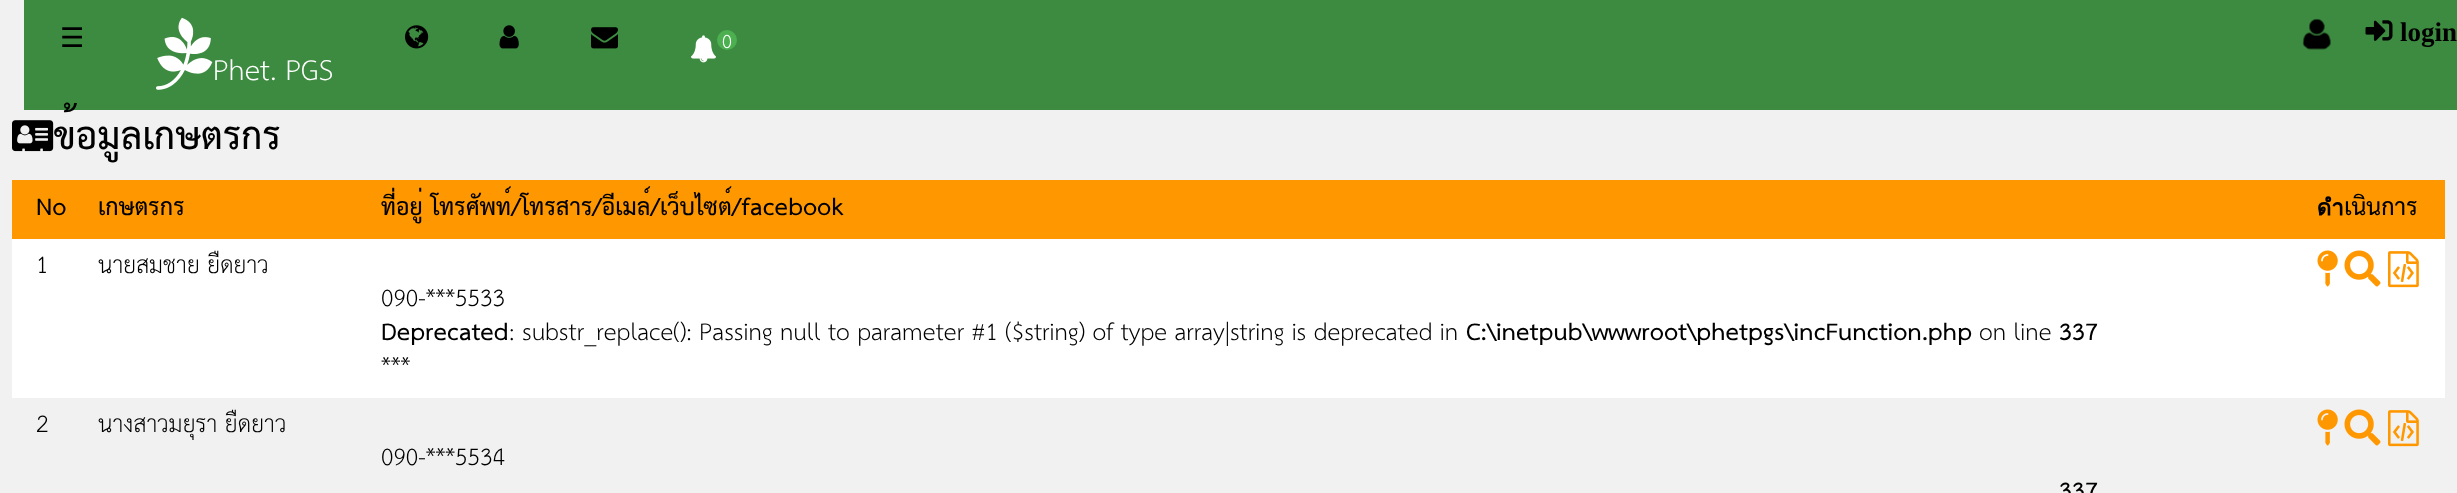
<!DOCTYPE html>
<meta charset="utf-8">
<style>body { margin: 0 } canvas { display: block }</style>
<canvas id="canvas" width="2457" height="493"></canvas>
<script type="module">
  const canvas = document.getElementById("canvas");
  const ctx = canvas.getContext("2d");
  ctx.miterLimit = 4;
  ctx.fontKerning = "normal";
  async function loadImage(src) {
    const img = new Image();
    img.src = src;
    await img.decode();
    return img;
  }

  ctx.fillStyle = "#f1f1f1";
  ctx.fillRect(0, 0, 2457, 493);
  ctx.fillStyle = "#3d8b40";
  ctx.fillRect(24, 0, 2433, 110);
  ctx.font = "27px DejaVu Sans";
  ctx.fillStyle = "#000000";
  ctx.fillText("☰", 60, 47);
  ctx.drawImage(await loadImage("img1.png"), 405, 25, 24, 24);
  ctx.drawImage(await loadImage("img2.png"), 499, 25, 20, 24);
  ctx.drawImage(await loadImage("img3.png"), 591, 27, 27, 22);
  ctx.drawImage(await loadImage("img4.png"), 691, 35, 25, 28);
  ctx.fillStyle = "#4caf50";
  ctx.beginPath();
  ctx.arc(727, 40, 10, 0, Math.PI * 2);
  ctx.fill();
  ctx.font = "18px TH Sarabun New";
  ctx.fillStyle = "#ffffff";
  ctx.fillText("0", 722, 48);
  ctx.drawImage(await loadImage("img5.png"), 2302, 18, 29, 32);
  ctx.drawImage(await loadImage("img6.png"), 2365, 20, 28, 21);
  ctx.font = "bold 27px Liberation Serif";
  ctx.fillStyle = "#000000";
  ctx.fillText("login", 2400, 41);
  ctx.drawImage(await loadImage("img7.png"), 156, 17, 57, 73);
  ctx.font = "27px TH Sarabun New";
  ctx.fillStyle = "#ffffff";
  ctx.fillText("Phet. PGS", 213, 80);
  ctx.drawImage(await loadImage("img8.png"), 12, 120, 42, 32);
  ctx.font = "bold 36px TH Sarabun New";
  ctx.fillStyle = "#000000";
  ctx.fillText("ข้อมูลเกษตรกร", 53, 149);
  ctx.fillStyle = "#ffffff";
  ctx.fillRect(12, 239, 2433, 159);
  ctx.fillStyle = "#ff9800";
  ctx.fillRect(12, 180, 2433, 59);
  ctx.font = "bold 22.5px TH Sarabun New";
  ctx.fillStyle = "#000000";
  ctx.fillText("No", 36, 215);
  ctx.fillText("เกษตรกร", 98, 215);
  ctx.fillText("ที่อยู่ โทรศัพท์/โทรสาร/อีเมล์/เว็บไซต์/facebook", 381, 215);
  ctx.fillText("ดำเนินการ", 2317, 215);
  ctx.font = "22.5px TH Sarabun New";
  ctx.fillText("1", 36, 273);
  ctx.fillText("นายสมชาย ยืดยาว", 98, 273);
  ctx.drawImage(await loadImage("img9.png"), 2317, 250, 21, 37);
  ctx.drawImage(await loadImage("img10.png"), 2344, 250, 37, 37);
  ctx.drawImage(await loadImage("img11.png"), 2388, 251, 31, 37);
  ctx.fillText("090-***5533", 381, 306);
  ctx.font = "bold 22.5px TH Sarabun New";
  ctx.fillText("Deprecated", 381, 340);
  ctx.font = "22.5px TH Sarabun New";
  ctx.fillText(": substr_replace(): Passing null to parameter #1 ($string) of type array|string is deprecated in", 509, 340);
  ctx.font = "bold 22.5px TH Sarabun New";
  ctx.fillText("C:\\inetpub\\wwwroot\\phetpgs\\incFunction.php", 1466, 340);
  ctx.font = "22.5px TH Sarabun New";
  ctx.fillText("on line", 1979, 340);
  ctx.font = "bold 22.5px TH Sarabun New";
  ctx.fillText("337", 2059, 340);
  ctx.font = "22.5px TH Sarabun New";
  ctx.fillText("***", 381, 374);
  ctx.fillText("2", 36, 432);
  ctx.fillText("นางสาวมยุรา ยืดยาว", 98, 432);
  ctx.drawImage(await loadImage("img12.png"), 2317, 409, 21, 37);
  ctx.drawImage(await loadImage("img13.png"), 2344, 409, 37, 37);
  ctx.drawImage(await loadImage("img14.png"), 2388, 410, 31, 37);
  ctx.fillText("090-***5534", 381, 465);
  ctx.font = "bold 22.5px TH Sarabun New";
  ctx.fillText("337", 2059, 499);
</script>
